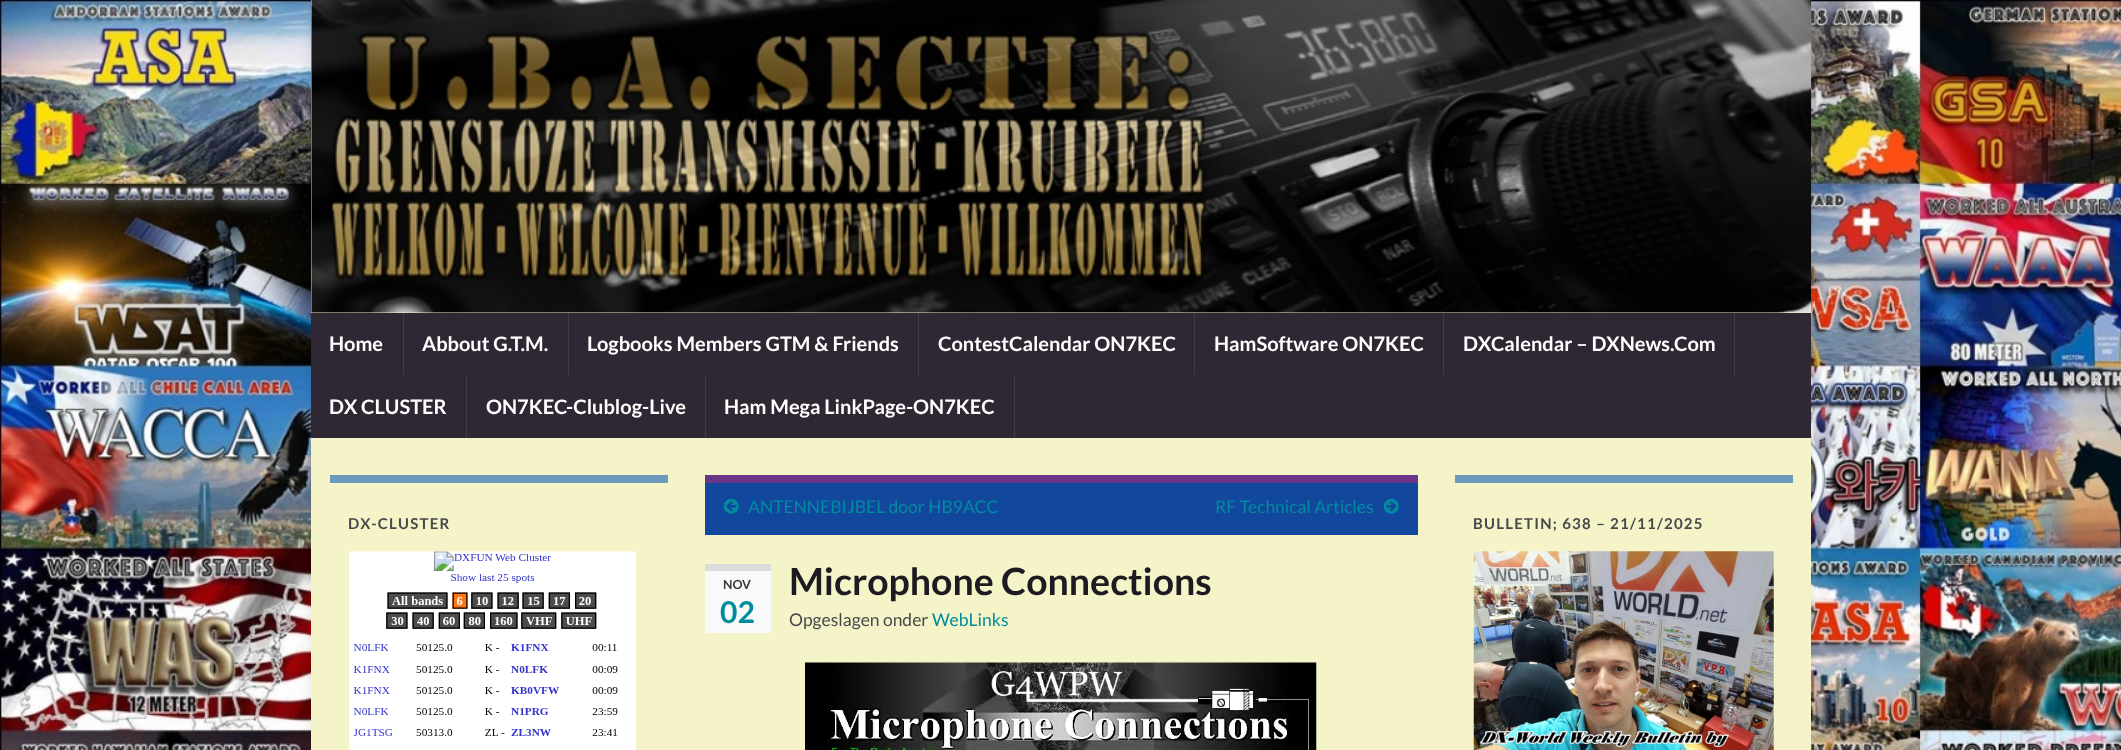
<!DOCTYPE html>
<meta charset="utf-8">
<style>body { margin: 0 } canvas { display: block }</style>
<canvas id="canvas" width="2121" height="750"></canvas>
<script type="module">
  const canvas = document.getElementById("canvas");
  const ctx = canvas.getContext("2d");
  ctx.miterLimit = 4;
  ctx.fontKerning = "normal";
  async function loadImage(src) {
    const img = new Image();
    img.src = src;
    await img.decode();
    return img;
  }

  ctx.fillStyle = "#ffffff";
  ctx.fillRect(0, 0, 2121, 750);
  ctx.drawImage(await loadImage("img1.png"), 0, 0, 2121, 750);
  ctx.fillStyle = "rgba(0, 0, 0, 0.1)";
  ctx.filter = "blur(6px)";
  ctx.beginPath();
  ctx.rect(311, 0, 1500, 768);
  ctx.fill();
  ctx.filter = "none";
  ctx.fillStyle = "#f4f4c8";
  ctx.fillRect(311, 0, 1500, 313);
  ctx.drawImage(await loadImage("img2.png"), 311, 0, 1501, 313);
  ctx.fillStyle = "#2f2733";
  ctx.fillRect(311, 313, 1500, 125);
  ctx.fillStyle = "#443d47";
  ctx.fillRect(403, 313, 1, 62);
  ctx.font = "bold 20px Lato";
  ctx.fillStyle = "#ffffff";
  ctx.fillText("Home", 329, 351);
  ctx.fillStyle = "#443d47";
  ctx.fillRect(568, 313, 1, 62);
  ctx.fillStyle = "#ffffff";
  ctx.fillText("Abbout G.T.M.", 422, 351);
  ctx.fillStyle = "#443d47";
  ctx.fillRect(918, 313, 1, 62);
  ctx.fillStyle = "#ffffff";
  ctx.fillText("Logbooks Members GTM & Friends", 587, 351);
  ctx.fillStyle = "#443d47";
  ctx.fillRect(1194, 313, 1, 62);
  ctx.fillStyle = "#ffffff";
  ctx.fillText("ContestCalendar ON7KEC", 938, 351);
  ctx.fillStyle = "#443d47";
  ctx.fillRect(1443, 313, 1, 62);
  ctx.fillStyle = "#ffffff";
  ctx.fillText("HamSoftware ON7KEC", 1214, 351);
  ctx.fillStyle = "#443d47";
  ctx.fillRect(1734, 313, 1, 62);
  ctx.fillStyle = "#ffffff";
  ctx.fillText("DXCalendar – DXNews.Com", 1463, 351);
  ctx.fillStyle = "#443d47";
  ctx.fillRect(466, 375, 1, 63);
  ctx.fillStyle = "#ffffff";
  ctx.fillText("DX CLUSTER", 329, 414);
  ctx.fillStyle = "#443d47";
  ctx.fillRect(705, 375, 1, 63);
  ctx.fillStyle = "#ffffff";
  ctx.fillText("ON7KEC-Clublog-Live", 486, 414);
  ctx.fillStyle = "#443d47";
  ctx.fillRect(1014, 375, 1, 63);
  ctx.fillStyle = "#ffffff";
  ctx.fillText("Ham Mega LinkPage-ON7KEC", 724, 414);
  ctx.fillStyle = "#f4f4c8";
  ctx.fillRect(311, 438, 1500, 312);
  ctx.fillStyle = "#7099bf";
  ctx.fillRect(330, 475, 338, 8);
  ctx.letterSpacing = "1.25px";
  ctx.font = "bold 15px Lato";
  ctx.fillStyle = "#4a474b";
  ctx.fillText("DX-CLUSTER", 348, 529);
  ctx.drawImage(await loadImage("img3.png"), 349, 551, 287, 199);
  ctx.fillStyle = "#12479e";
  ctx.fillRect(705, 483, 713, 52);
  ctx.fillStyle = "#6b3589";
  ctx.fillRect(705, 475, 713, 8);
  ctx.drawImage(await loadImage("img4.png"), 723, 498, 16, 16);
  ctx.letterSpacing = "0px";
  ctx.font = "17.5px Lato";
  ctx.fillStyle = "#008c9e";
  ctx.fillText("ANTENNEBIJBEL door HB9ACC", 748, 513);
  ctx.fillText("RF Technical Articles", 1215, 513);
  ctx.drawImage(await loadImage("img5.png"), 1383, 498, 16, 16);
  ctx.fillStyle = "#f9f9f9";
  ctx.fillRect(705, 571, 66, 62);
  ctx.fillStyle = "#dbdbdb";
  ctx.fillRect(705, 564, 66, 7);
  ctx.font = "bold 12.5px Lato";
  ctx.fillStyle = "#3b383d";
  ctx.fillText("NOV", 723, 589);
  ctx.font = "bold 30px Lato";
  ctx.fillStyle = "#008c9e";
  ctx.fillText("02", 720, 623);
  ctx.font = "bold 37.5px Lato";
  ctx.fillStyle = "#1f1a22";
  ctx.fillText("Microphone Connections", 789, 595);
  ctx.font = "17.5px Lato";
  ctx.fillStyle = "#4a474b";
  ctx.fillText("Opgeslagen onder", 789, 626);
  ctx.fillStyle = "#008c9e";
  ctx.fillText("WebLinks", 932, 626);
  ctx.drawImage(await loadImage("img6.png"), 805, 662, 512, 88);
  ctx.fillStyle = "#7099bf";
  ctx.fillRect(1455, 475, 338, 8);
  ctx.letterSpacing = "1.25px";
  ctx.font = "bold 15px Lato";
  ctx.fillStyle = "#4a474b";
  ctx.fillText("BULLETIN; 638 – 21/11/2025", 1473, 529);
  ctx.drawImage(await loadImage("img7.png"), 1473, 551, 301, 199);
</script>
